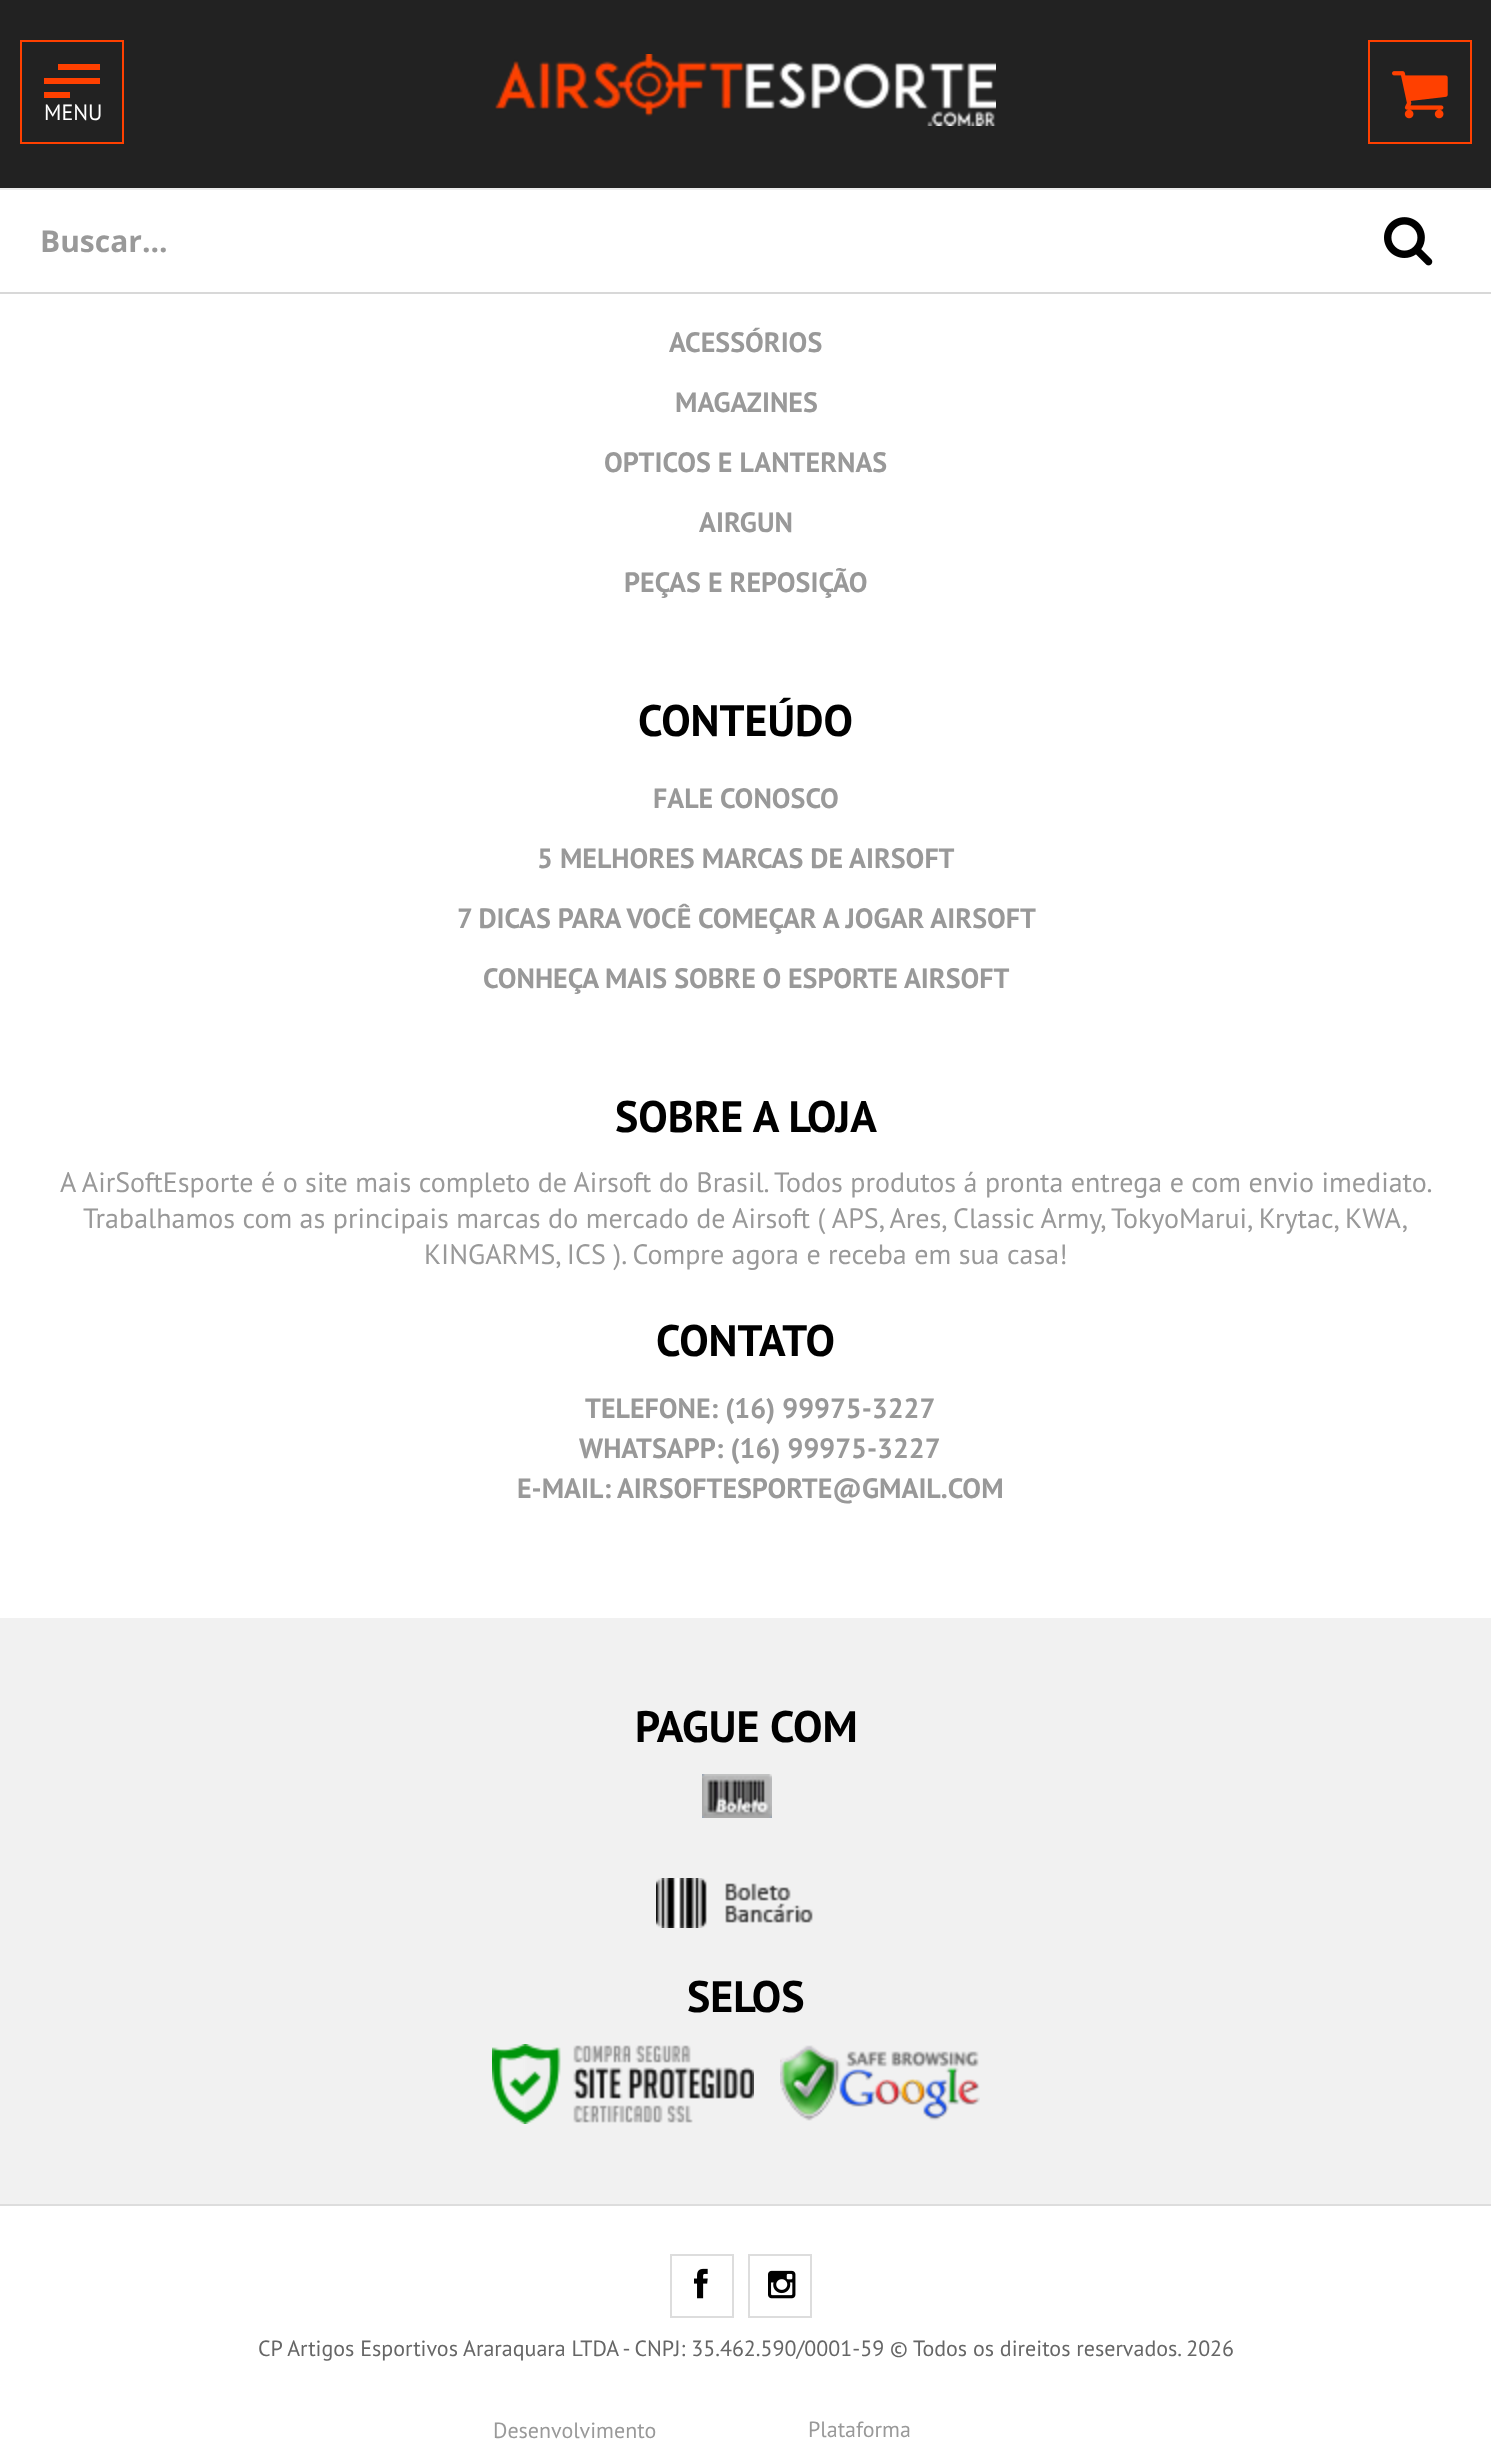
<!DOCTYPE html>
<meta charset="utf-8">
<style>body { margin: 0 } canvas { display: block }</style>
<canvas id="canvas" width="1491" height="2449"></canvas>
<script type="module">
  const canvas = document.getElementById("canvas");
  const ctx = canvas.getContext("2d");
  ctx.miterLimit = 4;
  ctx.fontKerning = "normal";
  async function loadImage(src) {
    const img = new Image();
    img.src = src;
    await img.decode();
    return img;
  }

  ctx.fillStyle = "#ffffff";
  ctx.fillRect(0, 0, 1491, 2449);
  ctx.fillStyle = "#222222";
  ctx.fillRect(0, 0, 1491, 188);
  ctx.strokeStyle = "#ff4000";
  ctx.lineWidth = 2;
  ctx.strokeRect(21, 41, 102, 102);
  ctx.fillStyle = "#ff4000";
  ctx.fillRect(58, 64, 42, 6);
  ctx.fillRect(44, 78, 56, 6);
  ctx.fillRect(44, 92, 26, 6);
  ctx.font = "22px PT Sans";
  ctx.fillStyle = "#ffffff";
  ctx.fillText("MENU", 44, 120);
  ctx.drawImage(await loadImage("img1.png"), 495, 54, 501, 72);
  ctx.strokeRect(1369, 41, 102, 102);
  ctx.drawImage(await loadImage("img2.png"), 1392, 71, 56, 48);
  ctx.fillStyle = "#d8d8d8";
  ctx.fillRect(0, 292, 1491, 2);
  ctx.fillStyle = "#ececec";
  ctx.fillRect(0, 188, 1491, 2);
  ctx.font = "bold 30px Open Sans";
  ctx.fillStyle = "#999999";
  ctx.fillText("Buscar...", 40, 252);
  ctx.drawImage(await loadImage("img3.png"), 1384, 217, 49, 49);
  ctx.font = "bold 28px PT Sans";
  ctx.fillText("ACESSÓRIOS", 669, 352);
  ctx.fillText("MAGAZINES", 675, 412);
  ctx.fillText("OPTICOS E LANTERNAS", 604, 472);
  ctx.fillText("AIRGUN", 699, 532);
  ctx.fillText("PEÇAS E REPOSIÇÃO", 624, 592);
  ctx.font = "bold 44px PT Sans";
  ctx.fillStyle = "#000000";
  ctx.fillText("CONTEÚDO", 638, 736);
  ctx.font = "bold 28px PT Sans";
  ctx.fillStyle = "#999999";
  ctx.fillText("FALE CONOSCO", 653, 808);
  ctx.fillText("5 MELHORES MARCAS DE AIRSOFT", 537, 868);
  ctx.fillText("7 DICAS PARA VOCÊ COMEÇAR A JOGAR AIRSOFT", 457, 928);
  ctx.fillText("CONHEÇA MAIS SOBRE O ESPORTE AIRSOFT", 483, 988);
  ctx.font = "bold 44px PT Sans";
  ctx.fillStyle = "#000000";
  ctx.fillText("SOBRE A LOJA", 615, 1132);
  ctx.font = "28px PT Sans";
  ctx.fillStyle = "#999999";
  ctx.fillText("A AirSoftEsporte é o site mais completo de Airsoft do Brasil. Todos produtos á pronta entrega e com envio imediato.", 60, 1192);
  ctx.fillText("Trabalhamos com as principais marcas do mercado de Airsoft ( APS, Ares, Classic Army, TokyoMarui, Krytac, KWA,", 83, 1228);
  ctx.fillText("KINGARMS, ICS ). Compre agora e receba em sua casa!", 424, 1264);
  ctx.font = "bold 44px PT Sans";
  ctx.fillStyle = "#000000";
  ctx.fillText("CONTATO", 656, 1356);
  ctx.font = "bold 28px PT Sans";
  ctx.fillStyle = "#999999";
  ctx.fillText("TELEFONE: (16) 99975-3227", 585, 1418);
  ctx.fillText("WHATSAPP: (16) 99975-3227", 579, 1458);
  ctx.fillText("E-MAIL: AIRSOFTESPORTE@GMAIL.COM", 517, 1498);
  ctx.fillStyle = "#f1f1f1";
  ctx.fillRect(0, 1618, 1491, 586);
  ctx.font = "bold 44px PT Sans";
  ctx.fillStyle = "#000000";
  ctx.fillText("PAGUE COM", 635, 1742);
  ctx.drawImage(await loadImage("img4.png"), 702, 1774, 70, 44);
  ctx.drawImage(await loadImage("img5.png"), 656, 1878, 157, 50);
  ctx.fillText("SELOS", 687, 2012);
  ctx.drawImage(await loadImage("img6.png"), 492, 2044, 262, 80);
  ctx.drawImage(await loadImage("img7.png"), 780, 2045, 200, 76);
  ctx.fillStyle = "#dddddd";
  ctx.fillRect(0, 2204, 1491, 2);
  ctx.strokeStyle = "#dddddd";
  ctx.strokeRect(671, 2255, 62, 62);
  ctx.drawImage(await loadImage("img8.png"), 694, 2268, 14, 31);
  ctx.strokeRect(749, 2255, 62, 62);
  ctx.drawImage(await loadImage("img9.png"), 768, 2270, 28, 29);
  ctx.font = "22px PT Sans";
  ctx.fillStyle = "#666666";
  ctx.fillText("CP Artigos Esportivos Araraquara LTDA - CNPJ: 35.462.590/0001-59 © Todos os direitos reservados. 2026", 258, 2356);
  ctx.fillStyle = "#999999";
  ctx.fillText("Desenvolvimento", 493, 2438);
  ctx.fillText("Plataforma", 808, 2437);
</script>
